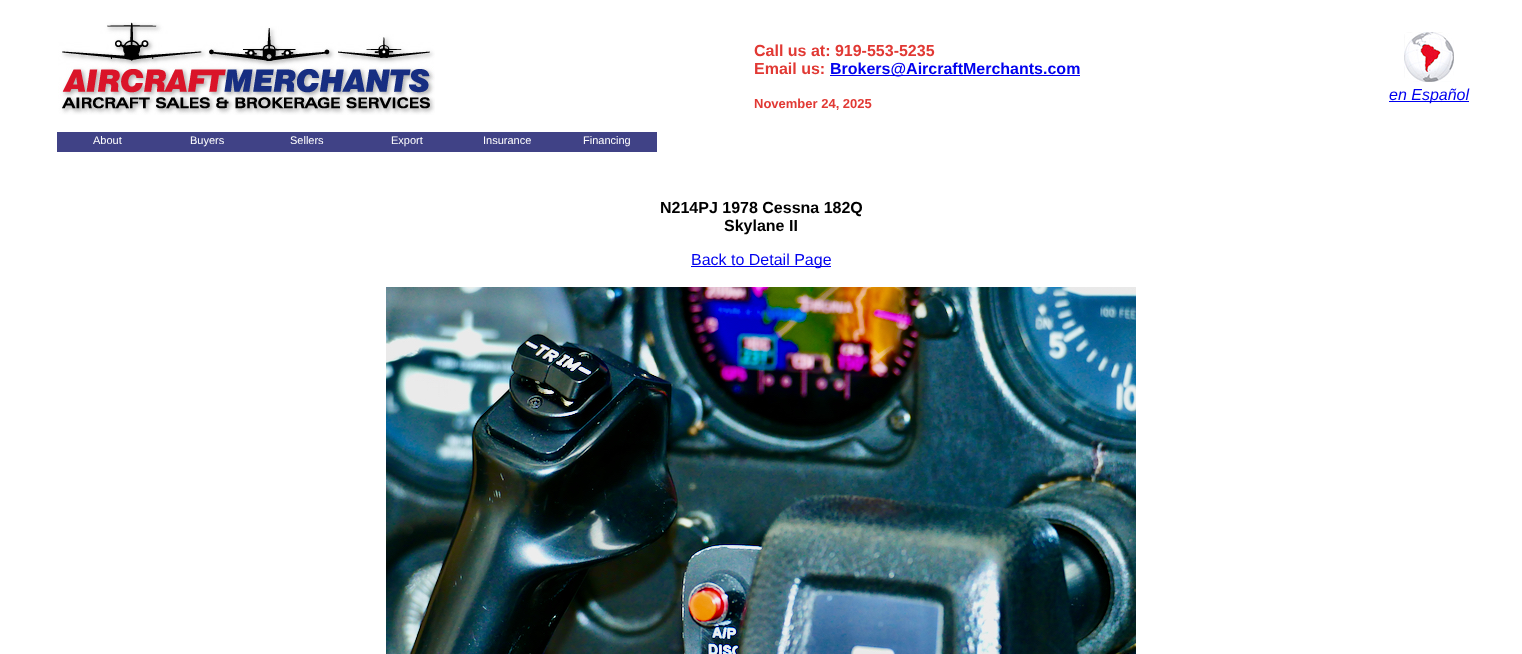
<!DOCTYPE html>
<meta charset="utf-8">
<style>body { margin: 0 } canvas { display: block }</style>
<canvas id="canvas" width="1522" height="654"></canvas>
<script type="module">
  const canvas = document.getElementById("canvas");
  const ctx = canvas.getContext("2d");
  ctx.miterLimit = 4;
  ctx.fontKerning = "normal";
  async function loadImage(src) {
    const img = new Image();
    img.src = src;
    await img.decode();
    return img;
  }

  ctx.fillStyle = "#ffffff";
  ctx.fillRect(0, 0, 1522, 654);
  ctx.drawImage(await loadImage("img1.png"), 58, 22, 377, 93);
  ctx.font = "bold 16px Liberation Sans";
  ctx.fillStyle = "#e13934";
  ctx.fillText("Call us at: 919-553-5235", 754, 56);
  ctx.fillText("Email us:", 754, 74);
  ctx.fillStyle = "#0000ee";
  ctx.fillRect(830, 75, 250, 1);
  ctx.fillText("Brokers@AircraftMerchants.com", 830, 74);
  ctx.font = "bold 13px Liberation Sans";
  ctx.fillStyle = "#e13934";
  ctx.fillText("November 24, 2025", 754, 108);
  ctx.drawImage(await loadImage("img2.png"), 1404, 32, 50, 50);
  ctx.fillStyle = "#0000ee";
  ctx.fillRect(1389, 101, 80, 1);
  ctx.font = "italic 16px Liberation Sans";
  ctx.fillText("en Español", 1389, 100);
  ctx.fillStyle = "#404286";
  ctx.fillRect(57, 132, 600, 20);
  ctx.font = "11px Liberation Sans";
  ctx.fillStyle = "#ffffff";
  ctx.fillText("About", 93, 144);
  ctx.fillText("Buyers", 190, 144);
  ctx.fillText("Sellers", 290, 144);
  ctx.fillText("Export", 391, 144);
  ctx.fillText("Insurance", 483, 144);
  ctx.fillText("Financing", 583, 144);
  ctx.font = "bold 16px Liberation Sans";
  ctx.fillStyle = "#000000";
  ctx.fillText("N214PJ 1978 Cessna 182Q", 660, 213);
  ctx.fillText("Skylane II", 724, 231);
  ctx.fillStyle = "#0000ee";
  ctx.fillRect(691, 266, 140, 1);
  ctx.font = "16px Liberation Sans";
  ctx.fillText("Back to Detail Page", 691, 265);
  ctx.drawImage(await loadImage("img3.png"), 386, 287, 750, 367);
</script>
